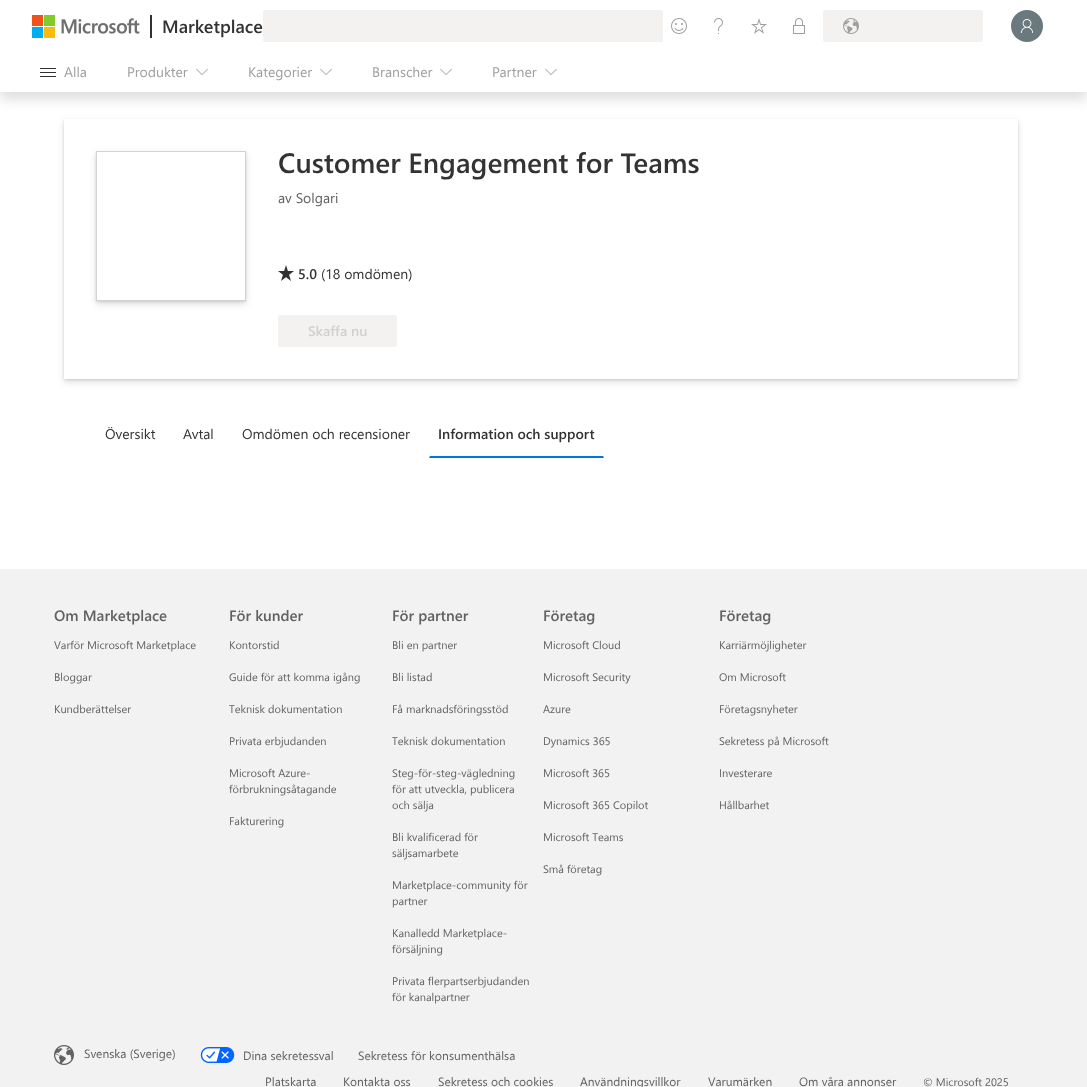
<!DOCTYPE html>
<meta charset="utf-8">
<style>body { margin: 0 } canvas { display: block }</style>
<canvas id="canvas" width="1087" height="1087"></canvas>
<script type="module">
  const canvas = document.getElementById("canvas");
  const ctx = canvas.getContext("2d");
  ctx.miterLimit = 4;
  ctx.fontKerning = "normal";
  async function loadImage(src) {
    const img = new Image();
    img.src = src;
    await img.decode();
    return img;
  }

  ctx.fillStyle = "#ffffff";
  ctx.fillRect(0, 0, 1087, 1087);
  ctx.fillStyle = "rgba(0, 0, 0, 0.12)";
  ctx.filter = "blur(6px)";
  ctx.beginPath();
  ctx.rect(0, 8, 1087, 92);
  ctx.fill();
  ctx.filter = "none";
  ctx.fillStyle = "#ffffff";
  ctx.fillRect(0, 0, 1087, 92);
  ctx.drawImage(await loadImage("img1.png"), 32, 15, 108, 23);
  ctx.fillStyle = "#323130";
  ctx.fillRect(150, 15, 2, 23);
  ctx.font = "600 18px 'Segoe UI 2'";
  ctx.fillStyle = "#333333";
  ctx.fillText("Marketplace", 162, 33);
  ctx.fillStyle = "#f3f2f1";
  ctx.fillRect(263, 10, 400, 32);
  ctx.fillStyle = "#fcfbfb";
  ctx.fillRect(263, 10, 1, 1);
  ctx.fillRect(662, 10, 1, 1);
  ctx.fillRect(263, 41, 1, 1);
  ctx.fillRect(662, 41, 1, 1);
  ctx.drawImage(await loadImage("img2.png"), 671, 18, 16, 16);
  ctx.drawImage(await loadImage("img3.png"), 714, 18, 9, 16);
  ctx.drawImage(await loadImage("img4.png"), 751, 18, 16, 16);
  ctx.drawImage(await loadImage("img5.png"), 793, 18, 12, 16);
  ctx.fillStyle = "#f3f2f1";
  ctx.beginPath();
  ctx.roundRect(823, 10, 160, 32, 2);
  ctx.fill();
  ctx.drawImage(await loadImage("img6.png"), 843, 18, 16, 16);
  ctx.fillStyle = "#fcfbfb";
  ctx.fillRect(867, 16, 1, 1);
  ctx.fillRect(966, 16, 1, 1);
  ctx.fillRect(867, 35, 1, 1);
  ctx.fillRect(966, 35, 1, 1);
  ctx.fillStyle = "#69797e";
  ctx.beginPath();
  ctx.arc(1027, 26, 16, 0, Math.PI * 2);
  ctx.fill();
  ctx.drawImage(await loadImage("img7.png"), 1020, 19, 14, 14);
  ctx.drawImage(await loadImage("img8.png"), 40, 68, 16, 9);
  ctx.font = "14px 'Segoe UI 2'";
  ctx.fillStyle = "#a19f9d";
  ctx.fillText("Alla", 64, 77);
  ctx.fillText("Produkter", 127, 77);
  ctx.drawImage(await loadImage("img9.png"), 196, 68, 12, 7);
  ctx.fillText("Kategorier", 248, 77);
  ctx.drawImage(await loadImage("img9.png"), 320, 68, 12, 7);
  ctx.fillText("Branscher", 372, 77);
  ctx.drawImage(await loadImage("img9.png"), 440, 68, 12, 7);
  ctx.fillText("Partner", 492, 77);
  ctx.drawImage(await loadImage("img9.png"), 545, 68, 12, 7);
  ctx.save();
  ctx.beginPath();
  ctx.moveTo(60, 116);
  ctx.lineTo(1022, 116);
  ctx.lineTo(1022, 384);
  ctx.lineTo(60, 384);
  ctx.closePath();
  ctx.moveTo(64, 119);
  ctx.lineTo(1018, 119);
  ctx.lineTo(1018, 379);
  ctx.lineTo(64, 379);
  ctx.closePath();
  ctx.clip("evenodd");
  ctx.fillStyle = "rgba(0, 0, 0, 0.11)";
  ctx.filter = "blur(1px)";
  ctx.beginPath();
  ctx.rect(64, 120, 954, 260);
  ctx.fill();
  ctx.filter = "none";
  ctx.restore();
  ctx.save();
  ctx.beginPath();
  ctx.moveTo(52, 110);
  ctx.lineTo(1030, 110);
  ctx.lineTo(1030, 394);
  ctx.lineTo(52, 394);
  ctx.closePath();
  ctx.moveTo(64, 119);
  ctx.lineTo(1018, 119);
  ctx.lineTo(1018, 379);
  ctx.lineTo(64, 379);
  ctx.closePath();
  ctx.clip("evenodd");
  ctx.fillStyle = "rgba(0, 0, 0, 0.13)";
  ctx.filter = "blur(3.5px)";
  ctx.beginPath();
  ctx.rect(64, 122, 954, 260);
  ctx.fill();
  ctx.filter = "none";
  ctx.restore();
  ctx.save();
  ctx.beginPath();
  ctx.moveTo(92, 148);
  ctx.lineTo(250, 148);
  ctx.lineTo(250, 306);
  ctx.lineTo(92, 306);
  ctx.closePath();
  ctx.moveTo(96, 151);
  ctx.lineTo(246, 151);
  ctx.lineTo(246, 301);
  ctx.lineTo(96, 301);
  ctx.closePath();
  ctx.clip("evenodd");
  ctx.fillStyle = "rgba(0, 0, 0, 0.11)";
  ctx.filter = "blur(1px)";
  ctx.beginPath();
  ctx.rect(96, 152, 150, 150);
  ctx.fill();
  ctx.filter = "none";
  ctx.restore();
  ctx.save();
  ctx.beginPath();
  ctx.moveTo(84, 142);
  ctx.lineTo(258, 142);
  ctx.lineTo(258, 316);
  ctx.lineTo(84, 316);
  ctx.closePath();
  ctx.moveTo(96, 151);
  ctx.lineTo(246, 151);
  ctx.lineTo(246, 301);
  ctx.lineTo(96, 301);
  ctx.closePath();
  ctx.clip("evenodd");
  ctx.fillStyle = "rgba(0, 0, 0, 0.13)";
  ctx.filter = "blur(3.5px)";
  ctx.beginPath();
  ctx.rect(96, 154, 150, 150);
  ctx.fill();
  ctx.filter = "none";
  ctx.restore();
  ctx.strokeStyle = "#d3d3d3";
  ctx.strokeRect(96.5, 151.5, 149, 149);
  ctx.font = "600 28px 'Segoe UI 2'";
  ctx.fillStyle = "#333333";
  ctx.fillText("Customer Engagement for Teams", 278, 173);
  ctx.font = "14px 'Segoe UI 2'";
  ctx.fillStyle = "#616161";
  ctx.fillText("av Solgari", 278, 203);
  ctx.drawImage(await loadImage("img10.png"), 278, 265, 16, 16);
  ctx.font = "600 14px 'Segoe UI 2'";
  ctx.fillStyle = "#333333";
  ctx.fillText("5.0", 298, 279);
  ctx.font = "14px 'Segoe UI 2'";
  ctx.fillText("(18 omdömen)", 321, 279);
  ctx.fillStyle = "#f3f2f1";
  ctx.beginPath();
  ctx.roundRect(278.5, 315.5, 118, 31, 1.5);
  ctx.fill();
  ctx.strokeStyle = "#f3f2f1";
  ctx.stroke();
  ctx.font = "600 14px 'Segoe UI 2'";
  ctx.fillStyle = "#d2d0ce";
  ctx.fillText("Skaffa nu", 308, 336);
  ctx.font = "14px 'Segoe UI 2'";
  ctx.fillStyle = "#333333";
  ctx.fillText("Översikt", 105, 439);
  ctx.fillText("Avtal", 183, 439);
  ctx.fillText("Omdömen och recensioner", 242, 439);
  ctx.fillStyle = "#0078d4";
  ctx.beginPath();
  ctx.moveTo(604, 458);
  ctx.lineTo(429, 458);
  ctx.lineTo(430, 456);
  ctx.lineTo(603, 456);
  ctx.closePath();
  ctx.fill();
  ctx.font = "600 14px 'Segoe UI 2'";
  ctx.fillStyle = "#333333";
  ctx.fillText("Information och support", 438, 439);
  ctx.fillStyle = "#f2f2f2";
  ctx.fillRect(0, 569, 1087, 518);
  ctx.font = "600 15px Segoe UI";
  ctx.fillStyle = "#616161";
  ctx.fillText("Om Marketplace", 54, 621);
  ctx.font = "11px Segoe UI";
  ctx.fillText("Varför Microsoft Marketplace", 54, 649);
  ctx.fillText("Bloggar", 54, 681);
  ctx.fillText("Kundberättelser", 54, 713);
  ctx.font = "600 15px Segoe UI";
  ctx.fillText("För kunder", 229, 621);
  ctx.font = "11px Segoe UI";
  ctx.fillText("Kontorstid", 229, 649);
  ctx.fillText("Guide för att komma igång", 229, 681);
  ctx.fillText("Teknisk dokumentation", 229, 713);
  ctx.fillText("Privata erbjudanden", 229, 745);
  ctx.fillText("Microsoft Azure-", 229, 777);
  ctx.fillText("förbrukningsåtagande", 229, 793);
  ctx.fillText("Fakturering", 229, 825);
  ctx.font = "600 15px Segoe UI";
  ctx.fillText("För partner", 392, 621);
  ctx.font = "11px Segoe UI";
  ctx.fillText("Bli en partner", 392, 649);
  ctx.fillText("Bli listad", 392, 681);
  ctx.fillText("Få marknadsföringsstöd", 392, 713);
  ctx.fillText("Teknisk dokumentation", 392, 745);
  ctx.fillText("Steg-för-steg-vägledning", 392, 777);
  ctx.fillText("för att utveckla, publicera", 392, 793);
  ctx.fillText("och sälja", 392, 809);
  ctx.fillText("Bli kvalificerad för", 392, 841);
  ctx.fillText("säljsamarbete", 392, 857);
  ctx.fillText("Marketplace-community för", 392, 889);
  ctx.fillText("partner", 392, 905);
  ctx.fillText("Kanalledd Marketplace-", 392, 937);
  ctx.fillText("försäljning", 392, 953);
  ctx.fillText("Privata flerpartserbjudanden", 392, 985);
  ctx.fillText("för kanalpartner", 392, 1001);
  ctx.font = "600 15px Segoe UI";
  ctx.fillText("Företag", 543, 621);
  ctx.font = "11px Segoe UI";
  ctx.fillText("Microsoft Cloud", 543, 649);
  ctx.fillText("Microsoft Security", 543, 681);
  ctx.fillText("Azure", 543, 713);
  ctx.fillText("Dynamics 365", 543, 745);
  ctx.fillText("Microsoft 365", 543, 777);
  ctx.fillText("Microsoft 365 Copilot", 543, 809);
  ctx.fillText("Microsoft Teams", 543, 841);
  ctx.fillText("Små företag", 543, 873);
  ctx.font = "600 15px Segoe UI";
  ctx.fillText("Företag", 719, 621);
  ctx.font = "11px Segoe UI";
  ctx.fillText("Karriärmöjligheter", 719, 649);
  ctx.fillText("Om Microsoft", 719, 681);
  ctx.fillText("Företagsnyheter", 719, 713);
  ctx.fillText("Sekretess på Microsoft", 719, 745);
  ctx.fillText("Investerare", 719, 777);
  ctx.fillText("Hållbarhet", 719, 809);
  ctx.drawImage(await loadImage("img11.png"), 54, 1045, 20, 20);
  ctx.font = "12px Segoe UI";
  ctx.fillText("Svenska (Sverige)", 84, 1058);
  ctx.drawImage(await loadImage("img12.png"), 200, 1047, 35, 16);
  ctx.fillText("Dina sekretessval", 243, 1060);
  ctx.fillText("Sekretess för konsumenthälsa", 358, 1060);
  ctx.fillText("Platskarta", 265, 1086);
  ctx.fillText("Kontakta oss", 343, 1086);
  ctx.fillText("Sekretess och cookies", 438, 1086);
  ctx.fillText("Användningsvillkor", 580, 1086);
  ctx.fillText("Varumärken", 708, 1086);
  ctx.fillText("Om våra annonser", 799, 1086);
  ctx.font = "11px Segoe UI";
  ctx.fillText("© Microsoft 2025", 923, 1086);
</script>
